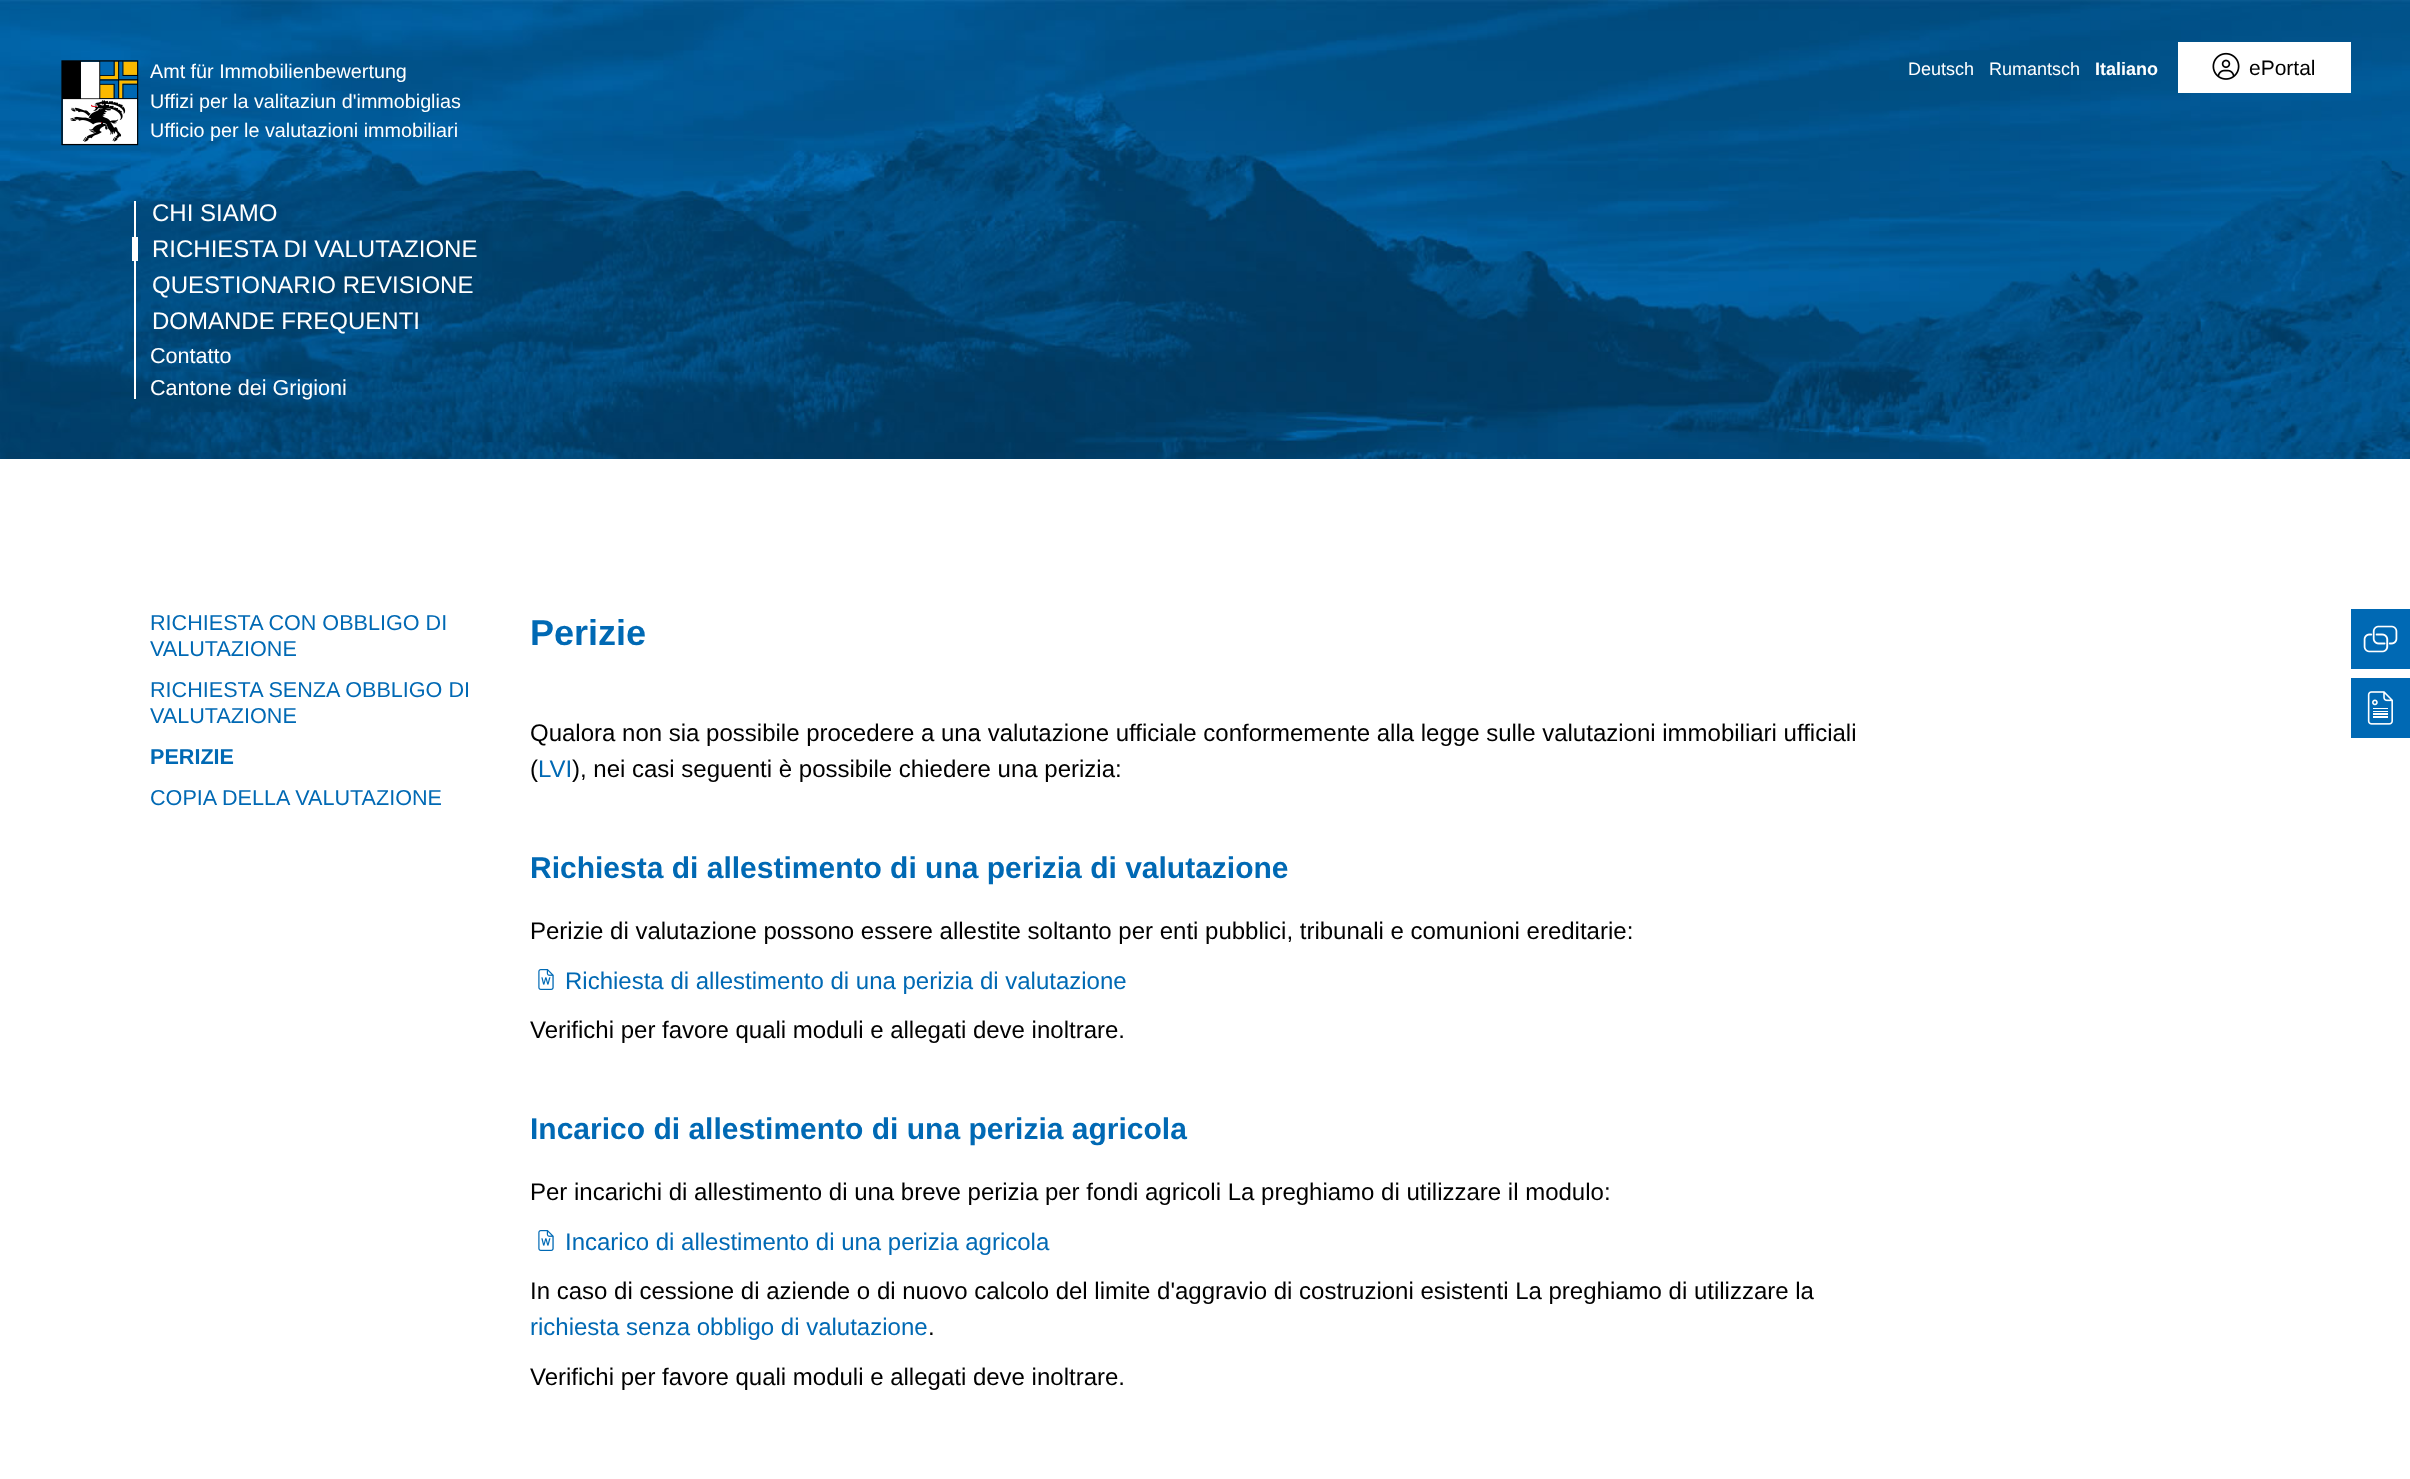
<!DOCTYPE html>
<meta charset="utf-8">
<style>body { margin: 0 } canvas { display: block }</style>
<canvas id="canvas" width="2410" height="1479"></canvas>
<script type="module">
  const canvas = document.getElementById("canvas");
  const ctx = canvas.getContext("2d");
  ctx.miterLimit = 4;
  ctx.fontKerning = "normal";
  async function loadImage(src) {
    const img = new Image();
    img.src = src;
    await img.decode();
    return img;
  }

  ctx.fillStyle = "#ffffff";
  ctx.fillRect(0, 0, 2410, 1479);
  ctx.drawImage(await loadImage("img1.png"), 0, 0, 2410, 459);
  ctx.drawImage(await loadImage("img2.png"), 61, 60, 78, 86);
  ctx.font = "19.75px Liberation Sans";
  ctx.fillText("Amt für Immobilienbewertung", 150, 78);
  ctx.fillText("Uffizi per la valitaziun d'immobiglias", 150, 108);
  ctx.fillText("Ufficio per le valutazioni immobiliari", 150, 137);
  ctx.font = "18px Liberation Sans";
  ctx.fillText("Deutsch", 1908, 75);
  ctx.fillText("Rumantsch", 1989, 75);
  ctx.font = "bold 18px Liberation Sans";
  ctx.fillText("Italiano", 2095, 75);
  ctx.fillRect(2178, 42, 173, 51);
  ctx.drawImage(await loadImage("img3.png"), 2212, 52, 28, 28);
  ctx.font = "21px Liberation Sans";
  ctx.fillStyle = "#000000";
  ctx.fillText("ePortal", 2249, 75);
  ctx.fillStyle = "#ffffff";
  ctx.fillRect(134, 201, 2, 198);
  ctx.font = "24px Liberation Sans";
  ctx.fillText("CHI SIAMO", 152, 221);
  ctx.fillRect(132, 237, 6, 24);
  ctx.fillText("RICHIESTA DI VALUTAZIONE", 152, 257);
  ctx.fillText("QUESTIONARIO REVISIONE", 152, 293);
  ctx.fillText("DOMANDE FREQUENTI", 152, 329);
  ctx.font = "21.6px Liberation Sans";
  ctx.fillText("Contatto", 150, 363);
  ctx.fillText("Cantone dei Grigioni", 150, 395);
  ctx.fillStyle = "#0069b4";
  ctx.fillText("RICHIESTA CON OBBLIGO DI", 150, 630);
  ctx.fillText("VALUTAZIONE", 150, 656);
  ctx.fillText("RICHIESTA SENZA OBBLIGO DI", 150, 697);
  ctx.fillText("VALUTAZIONE", 150, 723);
  ctx.font = "bold 21.6px Liberation Sans";
  ctx.fillText("PERIZIE", 150, 764);
  ctx.font = "21.6px Liberation Sans";
  ctx.fillText("COPIA DELLA VALUTAZIONE", 150, 805);
  ctx.font = "bold 36px Liberation Sans";
  ctx.fillText("Perizie", 530, 645);
  ctx.font = "24px Liberation Sans";
  ctx.fillStyle = "#000000";
  ctx.fillText("Qualora non sia possibile procedere a una valutazione ufficiale conformemente alla legge sulle valutazioni immobiliari ufficiali", 530, 741);
  ctx.fillText("(", 530, 777);
  ctx.fillStyle = "#0069b4";
  ctx.fillText("LVI", 538, 777);
  ctx.fillStyle = "#000000";
  ctx.fillText("), nei casi seguenti è possibile chiedere una perizia:", 572, 777);
  ctx.font = "bold 30px Liberation Sans";
  ctx.fillStyle = "#0069b4";
  ctx.fillText("Richiesta di allestimento di una perizia di valutazione", 530, 878);
  ctx.font = "24px Liberation Sans";
  ctx.fillStyle = "#000000";
  ctx.fillText("Perizie di valutazione possono essere allestite soltanto per enti pubblici, tribunali e comunioni ereditarie:", 530, 939);
  ctx.drawImage(await loadImage("img4.png"), 538, 969, 16, 21);
  ctx.fillStyle = "#0069b4";
  ctx.fillText("Richiesta di allestimento di una perizia di valutazione", 565, 989);
  ctx.fillStyle = "#000000";
  ctx.fillText("Verifichi per favore quali moduli e allegati deve inoltrare.", 530, 1038);
  ctx.font = "bold 30px Liberation Sans";
  ctx.fillStyle = "#0069b4";
  ctx.fillText("Incarico di allestimento di una perizia agricola", 530, 1139);
  ctx.font = "24px Liberation Sans";
  ctx.fillStyle = "#000000";
  ctx.fillText("Per incarichi di allestimento di una breve perizia per fondi agricoli La preghiamo di utilizzare il modulo:", 530, 1200);
  ctx.drawImage(await loadImage("img4.png"), 538, 1230, 16, 21);
  ctx.fillStyle = "#0069b4";
  ctx.fillText("Incarico di allestimento di una perizia agricola", 565, 1250);
  ctx.fillStyle = "#000000";
  ctx.fillText("In caso di cessione di aziende o di nuovo calcolo del limite d'aggravio di costruzioni esistenti La preghiamo di utilizzare la", 530, 1299);
  ctx.fillStyle = "#0069b4";
  ctx.fillText("richiesta senza obbligo di valutazione", 530, 1335);
  ctx.fillStyle = "#000000";
  ctx.fillText(".", 928, 1335);
  ctx.fillText("Verifichi per favore quali moduli e allegati deve inoltrare.", 530, 1385);
  ctx.fillStyle = "#0069b4";
  ctx.fillRect(2351, 609, 59, 60);
  ctx.drawImage(await loadImage("img5.png"), 2363, 625, 35, 28);
  ctx.fillRect(2351, 678, 59, 60);
  ctx.drawImage(await loadImage("img6.png"), 2367, 691, 26, 34);
</script>
